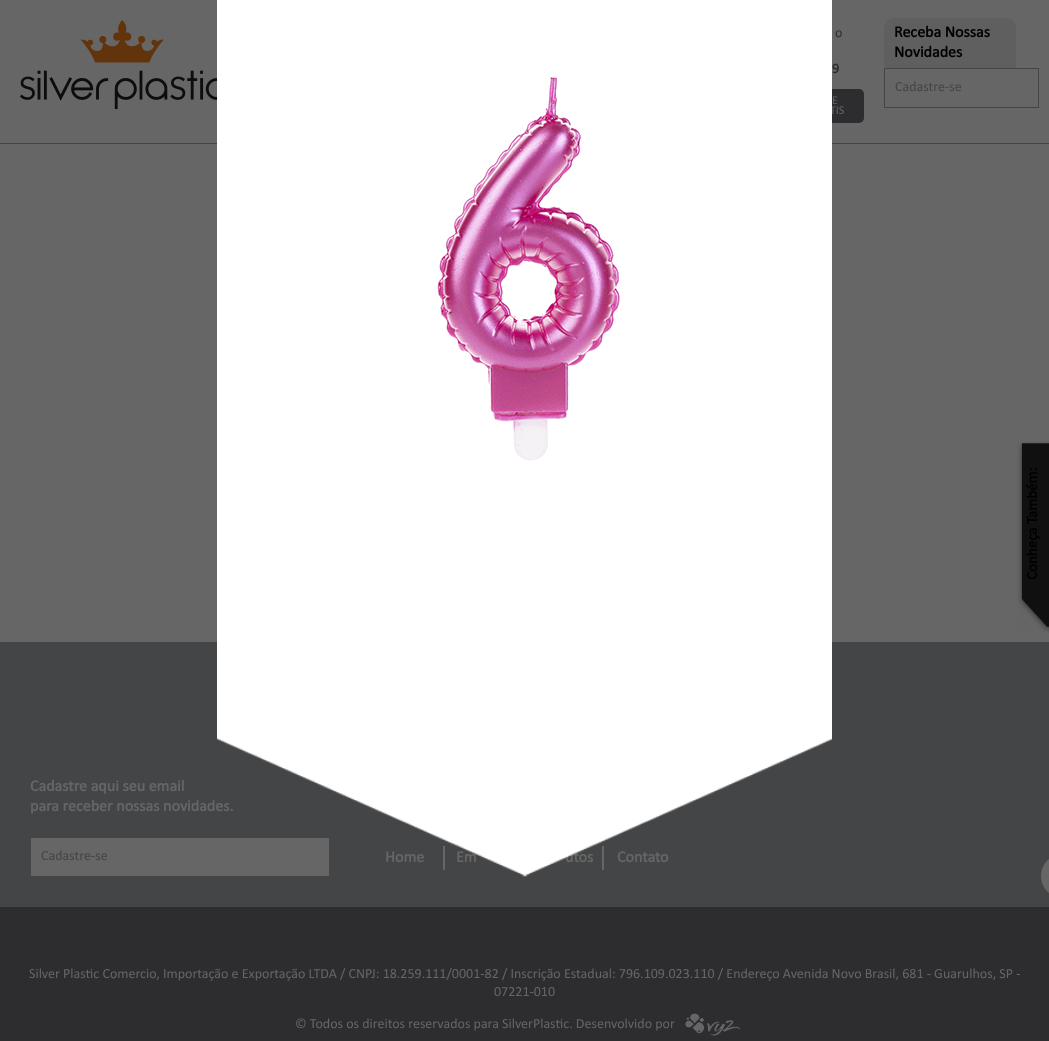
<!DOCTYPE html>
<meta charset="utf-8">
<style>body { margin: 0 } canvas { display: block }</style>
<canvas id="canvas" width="1049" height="1041"></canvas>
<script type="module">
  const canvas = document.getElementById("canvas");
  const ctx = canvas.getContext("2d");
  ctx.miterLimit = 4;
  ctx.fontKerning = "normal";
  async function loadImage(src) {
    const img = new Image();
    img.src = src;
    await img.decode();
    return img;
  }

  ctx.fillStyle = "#666666";
  ctx.fillRect(0, 0, 1049, 1041);
  ctx.fillStyle = "#444546";
  ctx.fillRect(0, 143, 1049, 1);
  ctx.fillStyle = "#2d2d2f";
  ctx.beginPath();
  ctx.roundRect(800, 89, 64, 34, [0, 5, 5, 0]);
  ctx.fill();
  ctx.font = "12px Calibri";
  ctx.fillStyle = "#666666";
  ctx.fillText("TIS", 830, 114);
  ctx.fillStyle = "#444546";
  ctx.fillRect(0, 642, 1049, 265);
  ctx.fillStyle = "#ffffff";
  ctx.fillRect(217, 0, 615, 710);
  ctx.drawImage(await loadImage("img1.png"), 437, 77, 183, 384);
  ctx.font = "bold 16px Calibri";
  ctx.fillStyle = "#666666";
  ctx.fillText("para receber nossas novidades.", 30, 811);
  ctx.fillRect(31, 838, 298, 38);
  ctx.fillRect(443, 846, 2, 24);
  ctx.fillText("Home", 385, 862);
  ctx.fillText("Em", 456, 862);
  ctx.fillRect(602, 846, 2, 24);
  ctx.fillText("utos", 565, 862);
  ctx.fillText("Contato", 617, 862);
  ctx.drawImage(await loadImage("img2.png"), 217, 710, 615, 167);
  ctx.drawImage(await loadImage("img3.png"), 20, 20, 197, 89);
  ctx.font = "14px Calibri";
  ctx.fillStyle = "#2d2d2f";
  ctx.fillText("o", 835, 37);
  ctx.font = "bold 14px Calibri";
  ctx.fillText("9", 832, 73);
  ctx.font = "12px Calibri";
  ctx.fillStyle = "#666666";
  ctx.fillText("E", 832, 104);
  ctx.fillStyle = "#5f5f5f";
  ctx.beginPath();
  ctx.roundRect(884, 18, 132, 50, [10, 10, 0, 0]);
  ctx.fill();
  ctx.font = "bold 16px Calibri";
  ctx.fillStyle = "#000000";
  ctx.fillText("Receba Nossas", 894, 37);
  ctx.fillText("Novidades", 894, 57);
  ctx.strokeStyle = "#444546";
  ctx.strokeRect(884.5, 68.5, 154, 39);
  ctx.font = "14px Calibri";
  ctx.fillStyle = "#444546";
  ctx.fillText("Cadastre-se", 895, 91);
  ctx.drawImage(await loadImage("img4.png"), 1017, 441, 32, 192);
  ctx.font = "bold 15px Calibri";
  ctx.fillStyle = "#000000";
  ctx.save();
  ctx.translate(1037, 580);
  ctx.rotate(-90 * Math.PI / 180);
  ctx.fillText("Conheça Também:", 0, 0);
  ctx.restore();
  ctx.font = "bold 16px Calibri";
  ctx.fillStyle = "#666666";
  ctx.fillText("Cadastre aqui seu email", 30, 791);
  ctx.font = "14px Calibri";
  ctx.fillStyle = "#444546";
  ctx.fillText("Cadastre-se", 41, 860);
  ctx.drawImage(await loadImage("img5.png"), 1041, 859, 8, 34);
  ctx.fillStyle = "#2d2d2f";
  ctx.fillRect(0, 907, 1049, 134);
  ctx.fillStyle = "#666666";
  ctx.fillText("Silver Plastic Comercio, Importação e Exportação LTDA / CNPJ: 18.259.111/0001-82 / Inscrição Estadual: 796.109.023.110 / Endereço Avenida Novo Brasil, 681 - Guarulhos, SP -", 29, 978);
  ctx.fillText("07221-010", 494, 996);
  ctx.fillText("© Todos os direitos reservados para SilverPlastic. Desenvolvido por", 295, 1028);
  ctx.drawImage(await loadImage("img6.png"), 685, 1013, 55, 23);
</script>
